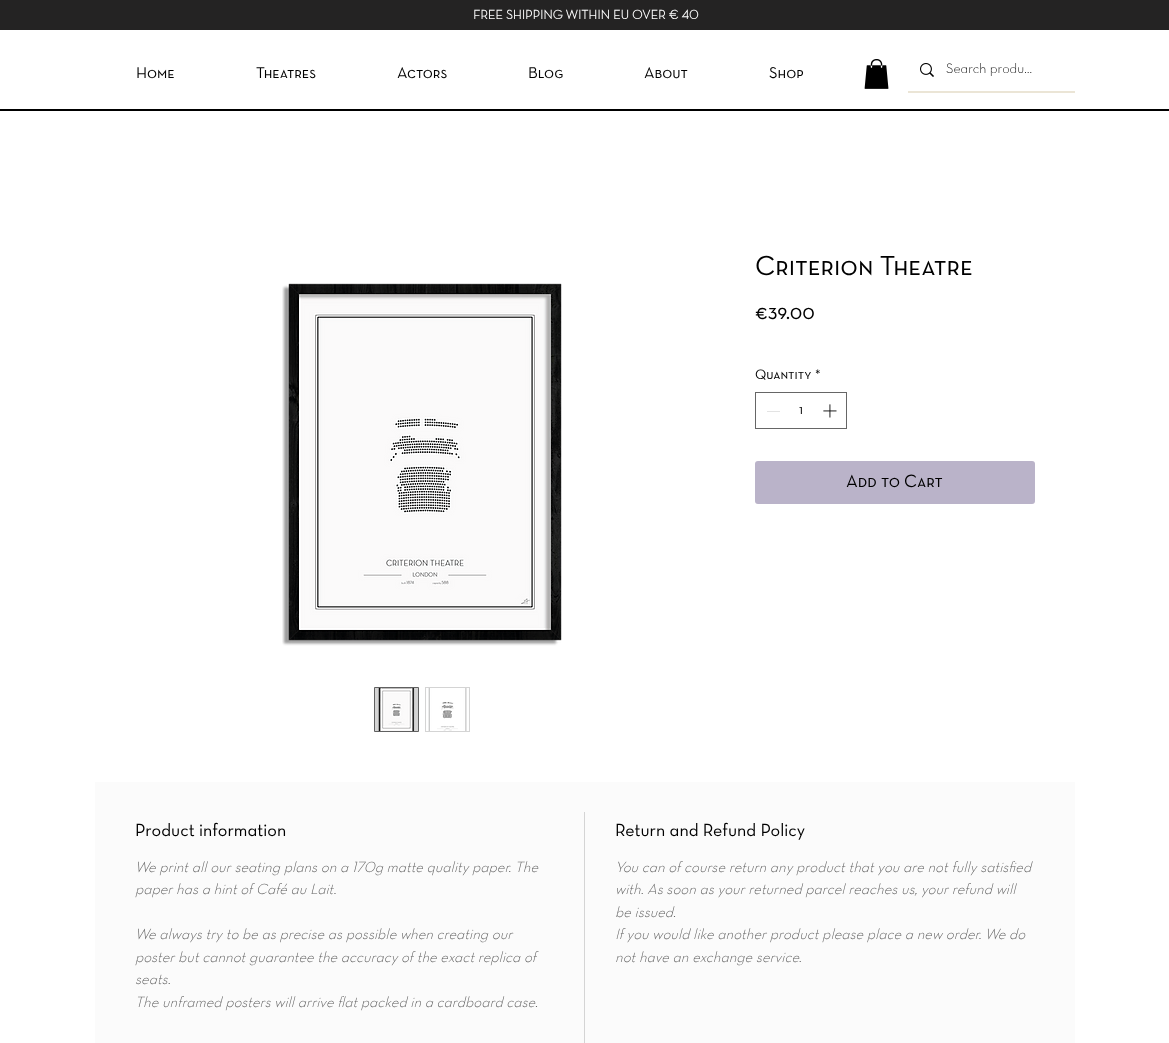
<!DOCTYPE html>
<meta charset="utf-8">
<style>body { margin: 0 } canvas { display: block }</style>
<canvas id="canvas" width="1169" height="1043"></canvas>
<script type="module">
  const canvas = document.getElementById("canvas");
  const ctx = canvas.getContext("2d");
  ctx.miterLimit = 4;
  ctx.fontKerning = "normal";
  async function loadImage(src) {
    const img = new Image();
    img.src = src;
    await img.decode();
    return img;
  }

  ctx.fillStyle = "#ffffff";
  ctx.fillRect(0, 0, 1169, 1043);
  ctx.fillStyle = "#242323";
  ctx.fillRect(0, 0, 1169, 30);
  ctx.font = "bold 13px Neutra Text";
  ctx.fillStyle = "#ffffff";
  ctx.fillText("FREE SHIPPING WITHIN EU OVER € 40", 473, 19);
  ctx.font = "16px Neutra Text";
  ctx.fillStyle = "#000000";
  ctx.fillText("Home", 136, 78);
  ctx.fillText("Theatres", 256, 78);
  ctx.fillText("Actors", 397, 78);
  ctx.fillText("Blog", 528, 78);
  ctx.fillText("About", 644, 78);
  ctx.fillText("Shop", 769, 78);
  ctx.drawImage(await loadImage("img1.png"), 864, 59, 25, 30);
  ctx.fillStyle = "#ebe5d6";
  ctx.fillRect(908, 91, 167, 2);
  ctx.drawImage(await loadImage("img2.png"), 920, 63, 14, 14);
  ctx.font = "300 14px Neutra Text";
  ctx.fillStyle = "#000000";
  ctx.fillText("Search produ…", 946, 73);
  ctx.fillRect(0, 109, 1169, 2);
  ctx.drawImage(await loadImage("img3.png"), 282, 283, 280, 363);
  ctx.fillStyle = "#d4d4d4";
  ctx.beginPath();
  ctx.rect(374.5, 687.5, 44, 44);
  ctx.fill();
  ctx.strokeStyle = "#606060";
  ctx.stroke();
  ctx.drawImage(await loadImage("img4.png"), 378, 688, 37, 43);
  ctx.fillRect(425, 687, 45, 45);
  ctx.drawImage(await loadImage("img5.png"), 426, 688, 43, 43);
  ctx.font = "28px Neutra Text";
  ctx.fillStyle = "#000000";
  ctx.fillText("Criterion Theatre", 755, 275);
  ctx.font = "22px Neutra Text";
  ctx.fillText("€39.00", 755, 319);
  ctx.font = "14px Neutra Text";
  ctx.fillText("Quantity", 755, 379);
  ctx.fillText("*", 815, 379);
  ctx.strokeStyle = "#666666";
  ctx.strokeRect(755.5, 392.5, 91, 36);
  ctx.fillStyle = "#e3e3e3";
  ctx.fillRect(767, 411, 13, 1);
  ctx.fillStyle = "#000000";
  ctx.fillText("1", 799, 414);
  ctx.drawImage(await loadImage("img6.png"), 823, 404, 14, 14);
  ctx.fillStyle = "#bab3c9";
  ctx.beginPath();
  ctx.roundRect(755, 461, 280, 43, 3);
  ctx.fill();
  ctx.font = "18px Neutra Text";
  ctx.fillStyle = "#000000";
  ctx.fillText("Add to Cart", 846, 487);
  ctx.fillStyle = "#fbfbfb";
  ctx.fillRect(95, 782, 980, 261);
  ctx.fillStyle = "#d4d4d4";
  ctx.fillRect(584, 812, 1, 231);
  ctx.font = "18px 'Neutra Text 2'";
  ctx.fillStyle = "#000000";
  ctx.fillText("Product information", 135, 836);
  ctx.font = "italic 300 15px Neutra Text";
  ctx.fillStyle = "#606060";
  ctx.fillText("We print all our seating plans on a 170g matte quality paper. The", 135, 872);
  ctx.fillText("paper has a hint of Café au Lait.", 135, 894);
  ctx.fillText("We always try to be as precise as possible when creating our", 135, 939);
  ctx.fillText("poster but cannot guarantee the accuracy of the exact replica of", 135, 962);
  ctx.fillText("seats.", 135, 984);
  ctx.fillText("The unframed posters will arrive flat packed in a cardboard case.", 135, 1007);
  ctx.font = "18px 'Neutra Text 2'";
  ctx.fillStyle = "#000000";
  ctx.fillText("Return and Refund Policy", 615, 836);
  ctx.font = "italic 300 15px Neutra Text";
  ctx.fillStyle = "#606060";
  ctx.fillText("You can of course return any product that you are not fully satisfied", 615, 872);
  ctx.fillText("with. As soon as your returned parcel reaches us, your refund will", 615, 894);
  ctx.fillText("be issued.", 615, 917);
  ctx.fillText("If you would like another product please place a new order. We do", 615, 939);
  ctx.fillText("not have an exchange service.", 615, 962);
</script>
